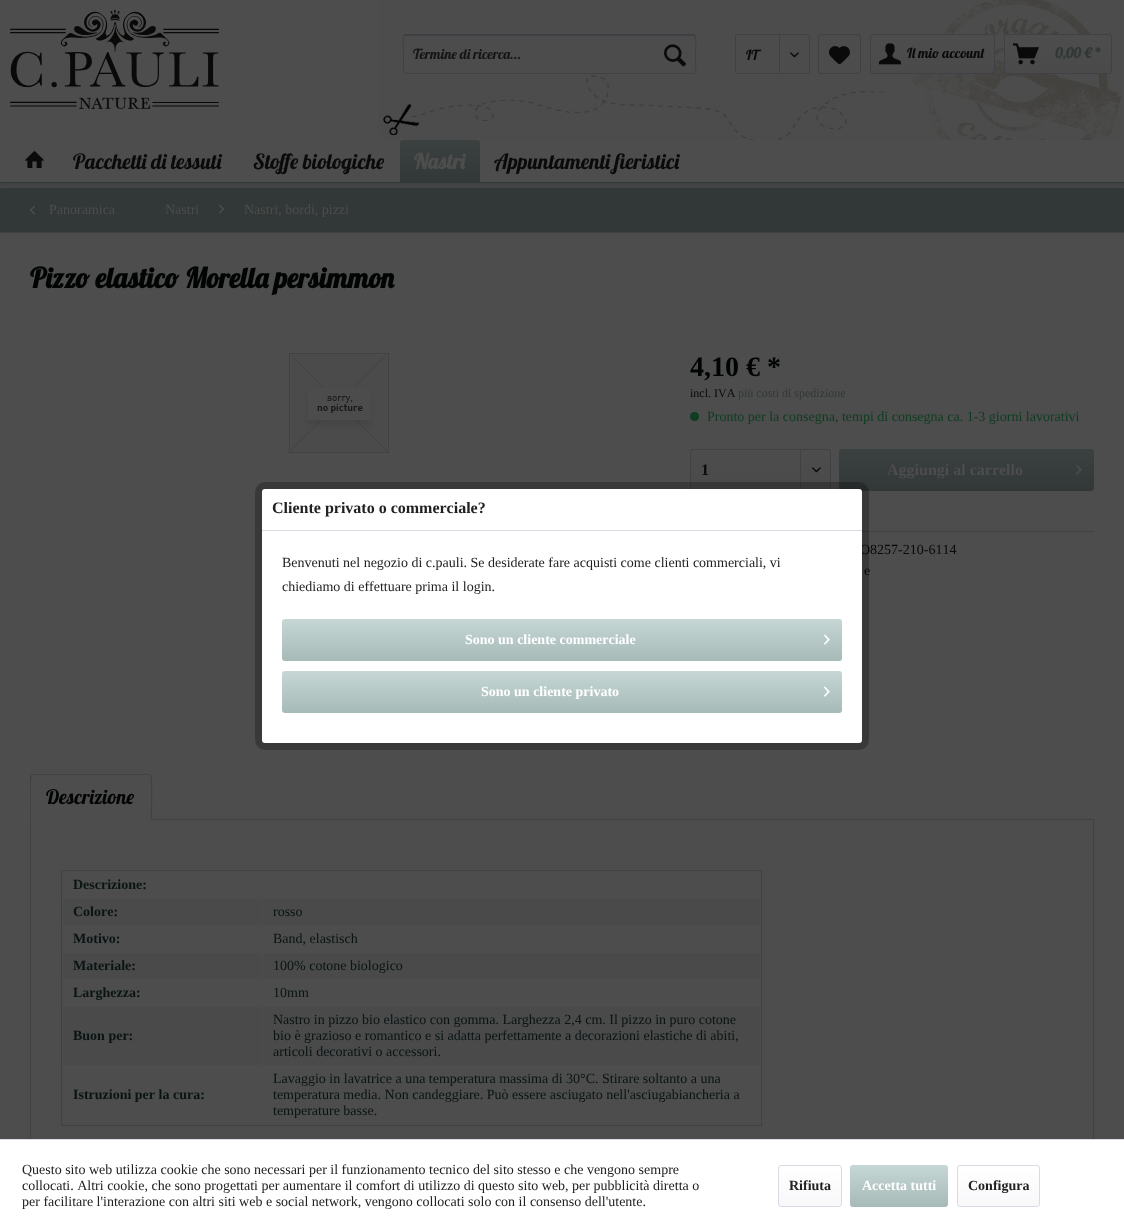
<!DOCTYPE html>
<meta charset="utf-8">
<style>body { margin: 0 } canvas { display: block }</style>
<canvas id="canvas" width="1124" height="1232"></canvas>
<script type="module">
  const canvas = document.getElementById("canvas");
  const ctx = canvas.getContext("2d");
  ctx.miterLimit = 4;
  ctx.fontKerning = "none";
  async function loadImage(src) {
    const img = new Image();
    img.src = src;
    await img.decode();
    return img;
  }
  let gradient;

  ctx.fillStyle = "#ffffff";
  ctx.fillRect(0, 0, 1124, 1232);
  ctx.drawImage(await loadImage("img1.png"), 0, 183, 1124, 5);
  ctx.fillStyle = "#4d4d4d";
  ctx.fillRect(0, 0, 1124, 140);
  ctx.drawImage(await loadImage("img2.png"), 378, 0, 744, 140);
  ctx.drawImage(await loadImage("img3.png"), 10, 10, 209, 99);
  ctx.fillStyle = "#414145";
  ctx.beginPath();
  ctx.moveTo(406, 36);
  ctx.lineTo(693, 36);
  ctx.bezierCurveTo(694, 36, 695, 37, 695, 38);
  ctx.bezierCurveTo(695, 37, 695, 35, 693, 35);
  ctx.lineTo(405, 35);
  ctx.lineTo(404, 38);
  ctx.bezierCurveTo(404, 37, 405, 36, 406, 36);
  ctx.closePath();
  ctx.fill();
  ctx.beginPath();
  ctx.moveTo(404, 35);
  ctx.lineTo(406, 34.5);
  ctx.lineTo(693, 34.5);
  ctx.lineTo(695, 35);
  ctx.strokeStyle = "#3d3d42";
  ctx.stroke();
  ctx.beginPath();
  ctx.moveTo(695, 35);
  ctx.bezierCurveTo(696.5, 37, 695.5, 51, 695.5, 54);
  ctx.lineTo(695.5, 65.5);
  ctx.bezierCurveTo(695.5, 67, 697, 73.5, 693, 73.5);
  ctx.lineTo(406, 73.5);
  ctx.bezierCurveTo(402, 73.5, 403.5, 67, 403.5, 65.5);
  ctx.lineTo(403.5, 54);
  ctx.bezierCurveTo(403.5, 51, 402.5, 37, 404, 35);
  ctx.strokeStyle = "#414145";
  ctx.stroke();
  ctx.font = "14px Lobster";
  ctx.fillStyle = "#151515";
  ctx.fillText("Termine di ricerca...", 413, 59);
  ctx.drawImage(await loadImage("img4.png"), 664, 44, 22, 23);
  ctx.beginPath();
  ctx.roundRect(735.5, 34.5, 74, 39, 2.5);
  ctx.stroke();
  ctx.fillStyle = "#0a0a0a";
  ctx.fillText("IT", 746, 60);
  ctx.fillStyle = "#414145";
  ctx.fillRect(779, 35, 1, 39);
  ctx.drawImage(await loadImage("img5.png"), 790, 52, 9, 6);
  ctx.beginPath();
  ctx.roundRect(818.5, 34.5, 42, 39, 2.5);
  ctx.stroke();
  ctx.drawImage(await loadImage("img6.png"), 829, 46, 21, 19);
  gradient = ctx.createLinearGradient(933, 35, 933, 73);
  gradient.addColorStop(0, "#4d4d4d");
  gradient.addColorStop(1, "#4a4a4b");
  ctx.fillStyle = gradient;
  ctx.beginPath();
  ctx.roundRect(871, 35, 123, 38, 2);
  ctx.fill();
  ctx.beginPath();
  ctx.roundRect(870.5, 34.5, 124, 39, 2.5);
  ctx.stroke();
  ctx.drawImage(await loadImage("img7.png"), 879, 43, 22, 22);
  ctx.fillStyle = "#0a0a0a";
  ctx.fillText("Il mio account", 907, 58);
  gradient = ctx.createLinearGradient(1058, 35, 1058, 73);
  gradient.addColorStop(0, "#4d4d4d");
  gradient.addColorStop(1, "#4a4a4b");
  ctx.fillStyle = gradient;
  ctx.beginPath();
  ctx.roundRect(1005, 35, 106, 38, 2);
  ctx.fill();
  ctx.beginPath();
  ctx.roundRect(1004.5, 34.5, 107, 39, 2.5);
  ctx.stroke();
  ctx.drawImage(await loadImage("img8.png"), 1013, 43, 26, 22);
  ctx.font = "bold 14px Lobster";
  ctx.fillStyle = "#323837";
  ctx.fillText("0,00 € *", 1055, 58);
  ctx.fillStyle = "#414145";
  ctx.filter = "blur(2px)";
  ctx.beginPath();
  ctx.rect(-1, 187, 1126, 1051);
  ctx.fill();
  ctx.filter = "none";
  ctx.fillStyle = "#4d4d4d";
  ctx.fillRect(0, 140, 1124, 42);
  ctx.fillStyle = "#323837";
  ctx.fillRect(0, 182, 1124, 1);
  ctx.drawImage(await loadImage("img9.png"), 25, 151, 19, 17);
  ctx.font = "21px Lobster";
  ctx.fillStyle = "#0a0a0a";
  ctx.fillText("Pacchetti di tessuti", 73, 169);
  ctx.fillText("Stoffe biologiche", 253, 169);
  gradient = ctx.createLinearGradient(440, 140, 440, 182);
  gradient.addColorStop(0, "#3b4140");
  gradient.addColorStop(1, "#323837");
  ctx.fillStyle = gradient;
  ctx.beginPath();
  ctx.roundRect(400, 140, 80, 42, [3, 3, 0, 0]);
  ctx.fill();
  ctx.font = "bold 21px Lobster";
  ctx.fillStyle = "#4d4d4d";
  ctx.fillText("Nastri", 414, 169);
  ctx.font = "21px Lobster";
  ctx.fillStyle = "#0a0a0a";
  ctx.fillText("Appuntamenti fieristici", 494, 169);
  ctx.fillStyle = "#4d4d4d";
  ctx.fillRect(0, 233, 1124, 906);
  ctx.fillStyle = "#323837";
  ctx.fillRect(0, 188, 1124, 44);
  ctx.fillStyle = "#414145";
  ctx.fillRect(0, 232, 1124, 1);
  ctx.drawImage(await loadImage("img10.png"), 30, 205, 5, 10);
  ctx.font = "14px Liberation Serif";
  ctx.fillStyle = "#4d4d4d";
  ctx.fillText("Panoramica", 49, 214);
  ctx.fillText("Nastri", 165, 214);
  ctx.drawImage(await loadImage("img11.png"), 219, 204, 5, 10);
  ctx.fillText("Nastri, bordi, pizzi", 244, 214);
  ctx.font = "bold 28px Lobster";
  ctx.fillStyle = "#020404";
  ctx.fillText("Pizzo elastico Morella persimmon", 30, 288);
  ctx.drawImage(await loadImage("img12.png"), 289, 353, 100, 100);
  ctx.font = "bold 28px Liberation Serif";
  ctx.fillText("4,10 € *", 690, 376);
  ctx.font = "12px Liberation Serif";
  ctx.fillStyle = "#0a0a0a";
  ctx.fillText("incl. IVA", 690, 397);
  ctx.fillStyle = "#323837";
  ctx.fillText("più costi di spedizione", 738, 397);
  ctx.fillStyle = "#0e3d22";
  ctx.beginPath();
  ctx.arc(694.5, 416.5, 4.5, 0, Math.PI * 2);
  ctx.fill();
  ctx.font = "14px Liberation Serif";
  ctx.fillText("Pronto per la consegna, tempi di consegna ca. 1-3 giorni lavorativi", 707, 421);
  gradient = ctx.createLinearGradient(761, 450, 761, 490);
  gradient.addColorStop(0, "#4d4d4d");
  gradient.addColorStop(1, "#4a4a4b");
  ctx.fillStyle = gradient;
  ctx.beginPath();
  ctx.roundRect(691, 450, 139, 40, 2);
  ctx.fill();
  ctx.beginPath();
  ctx.roundRect(690.5, 449.5, 140, 41, 2.5);
  ctx.stroke();
  ctx.font = "bold 16px Liberation Serif";
  ctx.fillStyle = "#0a0a0a";
  ctx.fillText("1", 701, 475);
  ctx.fillStyle = "#414145";
  ctx.fillRect(800, 450, 1, 40);
  ctx.drawImage(await loadImage("img13.png"), 812, 467, 9, 6);
  gradient = ctx.createLinearGradient(967, 449, 967, 491);
  gradient.addColorStop(0, "#3b4140");
  gradient.addColorStop(1, "#323837");
  ctx.fillStyle = gradient;
  ctx.beginPath();
  ctx.roundRect(839, 449, 255, 42, 3);
  ctx.fill();
  ctx.fillStyle = "#4d4d4d";
  ctx.fillText("Aggiungi al carrello", 887, 475);
  ctx.drawImage(await loadImage("img14.png"), 1076, 464, 6, 11);
  ctx.fillStyle = "#414145";
  ctx.fillRect(862, 531, 232, 1);
  ctx.font = "14px Liberation Serif";
  ctx.fillStyle = "#0a0a0a";
  ctx.fillText("O8257-210-6114", 860, 554);
  ctx.fillText("e", 864, 575);
  ctx.strokeRect(30.5, 819.5, 1063, 357);
  ctx.fillStyle = "#4d4d4d";
  ctx.beginPath();
  ctx.roundRect(30, 774, 122, 46, [3, 3, 0, 0]);
  ctx.fill();
  ctx.fillStyle = "#414145";
  ctx.beginPath();
  ctx.moveTo(33, 774);
  ctx.lineTo(31, 775);
  ctx.lineTo(32, 776);
  ctx.lineTo(33, 775);
  ctx.lineTo(149, 775);
  ctx.lineTo(150, 776);
  ctx.lineTo(151, 775);
  ctx.lineTo(149, 774);
  ctx.closePath();
  ctx.fill();
  ctx.beginPath();
  ctx.moveTo(152, 820);
  ctx.bezierCurveTo(152, 815, 153, 777, 151, 775);
  ctx.lineTo(150, 776);
  ctx.bezierCurveTo(152, 777, 151, 814, 151, 819);
  ctx.closePath();
  ctx.fill();
  ctx.fillStyle = "#4d4d4d";
  ctx.beginPath();
  ctx.moveTo(152, 820);
  ctx.lineTo(151, 819);
  ctx.lineTo(31, 819);
  ctx.lineTo(30, 820);
  ctx.closePath();
  ctx.fill();
  ctx.fillStyle = "#414145";
  ctx.beginPath();
  ctx.moveTo(30, 820);
  ctx.lineTo(31, 819);
  ctx.bezierCurveTo(31, 814, 30, 777, 32, 776);
  ctx.lineTo(31, 775);
  ctx.lineTo(30, 777);
  ctx.closePath();
  ctx.fill();
  ctx.font = "20px Lobster";
  ctx.fillStyle = "#020404";
  ctx.fillText("Descrizione", 46, 804);
  ctx.strokeRect(61.5, 870.5, 700, 255);
  ctx.font = "bold 14px Liberation Serif";
  ctx.fillStyle = "#091413";
  ctx.fillText("Descrizione:", 73, 889);
  ctx.fillStyle = "#4a4a4a";
  ctx.fillRect(63, 899, 199, 26);
  ctx.fillStyle = "#091413";
  ctx.fillText("Colore:", 73, 916);
  ctx.fillStyle = "#4a4a4a";
  ctx.fillRect(263, 899, 497, 26);
  ctx.font = "14px Liberation Serif";
  ctx.fillStyle = "#091413";
  ctx.fillText("rosso", 273, 916);
  ctx.font = "bold 14px Liberation Serif";
  ctx.fillText("Motivo:", 73, 943);
  ctx.font = "14px Liberation Serif";
  ctx.fillText("Band, elastisch", 273, 943);
  ctx.fillStyle = "#4a4a4a";
  ctx.fillRect(63, 953, 199, 26);
  ctx.font = "bold 14px Liberation Serif";
  ctx.fillStyle = "#091413";
  ctx.fillText("Materiale:", 73, 970);
  ctx.fillStyle = "#4a4a4a";
  ctx.fillRect(263, 953, 497, 26);
  ctx.font = "14px Liberation Serif";
  ctx.fillStyle = "#091413";
  ctx.fillText("100% cotone biologico", 273, 970);
  ctx.font = "bold 14px Liberation Serif";
  ctx.fillText("Larghezza:", 73, 997);
  ctx.font = "14px Liberation Serif";
  ctx.fillText("10mm", 273, 997);
  ctx.fillStyle = "#4a4a4a";
  ctx.fillRect(63, 1007, 199, 58);
  ctx.font = "bold 14px Liberation Serif";
  ctx.fillStyle = "#091413";
  ctx.fillText("Buon per:", 73, 1040);
  ctx.fillStyle = "#4a4a4a";
  ctx.fillRect(263, 1007, 497, 58);
  ctx.font = "14px Liberation Serif";
  ctx.fillStyle = "#091413";
  ctx.fillText("Nastro in pizzo bio elastico con gomma. Larghezza 2,4 cm. Il pizzo in puro cotone", 273, 1024);
  ctx.fillText("bio è grazioso e romantico e si adatta perfettamente a decorazioni elastiche di abiti,", 273, 1040);
  ctx.fillText("articoli decorativi o accessori.", 273, 1056);
  ctx.font = "bold 14px Liberation Serif";
  ctx.fillText("Istruzioni per la cura:", 73, 1099);
  ctx.font = "14px Liberation Serif";
  ctx.fillText("Lavaggio in lavatrice a una temperatura massima di 30°C. Stirare soltanto a una", 273, 1083);
  ctx.fillText("temperatura media. Non candeggiare. Può essere asciugato nell'asciugabiancheria a", 273, 1099);
  ctx.fillText("temperature basse.", 273, 1115);
  ctx.beginPath();
  ctx.roundRect(258.5, 485.5, 607, 261, 6.5);
  ctx.strokeStyle = "rgba(0, 0, 0, 0.25)";
  ctx.lineWidth = 7;
  ctx.stroke();
  ctx.fillStyle = "#ffffff";
  ctx.beginPath();
  ctx.roundRect(262, 489, 600, 254, 3);
  ctx.fill();
  ctx.fillStyle = "#dadae5";
  ctx.fillRect(262, 530, 600, 1);
  ctx.font = "bold 16px Liberation Serif";
  ctx.fillStyle = "#212121";
  ctx.fillText("Cliente privato o commerciale?", 272, 513);
  ctx.font = "14px Liberation Serif";
  ctx.fillText("Benvenuti nel negozio di c.pauli. Se desiderate fare acquisti come clienti commerciali, vi", 282, 567);
  ctx.fillText("chiediamo di effettuare prima il login.", 282, 591);
  gradient = ctx.createLinearGradient(562, 619, 562, 661);
  gradient.addColorStop(0, "#c6d7d5");
  gradient.addColorStop(1, "#a6bab8");
  ctx.fillStyle = gradient;
  ctx.beginPath();
  ctx.roundRect(282, 619, 560, 42, 3);
  ctx.fill();
  ctx.font = "bold 14px Liberation Serif";
  ctx.fillStyle = "#ffffff";
  ctx.fillText("Sono un cliente commerciale", 465, 644);
  ctx.drawImage(await loadImage("img15.png"), 824, 634, 6, 11);
  gradient = ctx.createLinearGradient(562, 671, 562, 713);
  gradient.addColorStop(0, "#c6d7d5");
  gradient.addColorStop(1, "#a6bab8");
  ctx.fillStyle = gradient;
  ctx.beginPath();
  ctx.roundRect(282, 671, 560, 42, 3);
  ctx.fill();
  ctx.fillStyle = "#ffffff";
  ctx.fillText("Sono un cliente privato", 481, 696);
  ctx.drawImage(await loadImage("img15.png"), 824, 686, 6, 11);
  ctx.fillRect(0, 1140, 1124, 92);
  ctx.fillStyle = "#dadae5";
  ctx.fillRect(0, 1139, 1124, 1);
  ctx.font = "14px Liberation Serif";
  ctx.fillStyle = "#212121";
  ctx.fillText("Questo sito web utilizza cookie che sono necessari per il funzionamento tecnico del sito stesso e che vengono sempre", 22, 1174);
  ctx.fillText("collocati. Altri cookie, che sono progettati per aumentare il comfort di utilizzo di questo sito web, per pubblicità diretta o", 22, 1190);
  ctx.fillText("per facilitare l'interazione con altri siti web e social network, vengono collocati solo con il consenso dell'utente.", 22, 1206);
  gradient = ctx.createLinearGradient(810, 1166, 810, 1206);
  gradient.addColorStop(0, "#ffffff");
  gradient.addColorStop(1, "#f8f8fa");
  ctx.fillStyle = gradient;
  ctx.beginPath();
  ctx.roundRect(779, 1166, 62, 40, 2);
  ctx.fill();
  ctx.beginPath();
  ctx.roundRect(778.5, 1165.5, 63, 41, 2.5);
  ctx.strokeStyle = "#dadae5";
  ctx.lineWidth = 1;
  ctx.stroke();
  ctx.font = "bold 14px Liberation Serif";
  ctx.fillStyle = "#212121";
  ctx.fillText("Rifiuta", 789, 1190);
  gradient = ctx.createLinearGradient(899, 1165, 899, 1207);
  gradient.addColorStop(0, "#c6d7d5");
  gradient.addColorStop(1, "#a6bab8");
  ctx.fillStyle = gradient;
  ctx.beginPath();
  ctx.roundRect(850, 1165, 98, 42, 3);
  ctx.fill();
  ctx.fillStyle = "#ffffff";
  ctx.fillText("Accetta tutti", 862, 1190);
  gradient = ctx.createLinearGradient(999, 1166, 999, 1206);
  gradient.addColorStop(0, "#ffffff");
  gradient.addColorStop(1, "#f8f8fa");
  ctx.fillStyle = gradient;
  ctx.beginPath();
  ctx.roundRect(958, 1166, 81, 40, 2);
  ctx.fill();
  ctx.beginPath();
  ctx.roundRect(957.5, 1165.5, 82, 41, 2.5);
  ctx.stroke();
  ctx.fillStyle = "#212121";
  ctx.fillText("Configura", 968, 1190);
</script>
